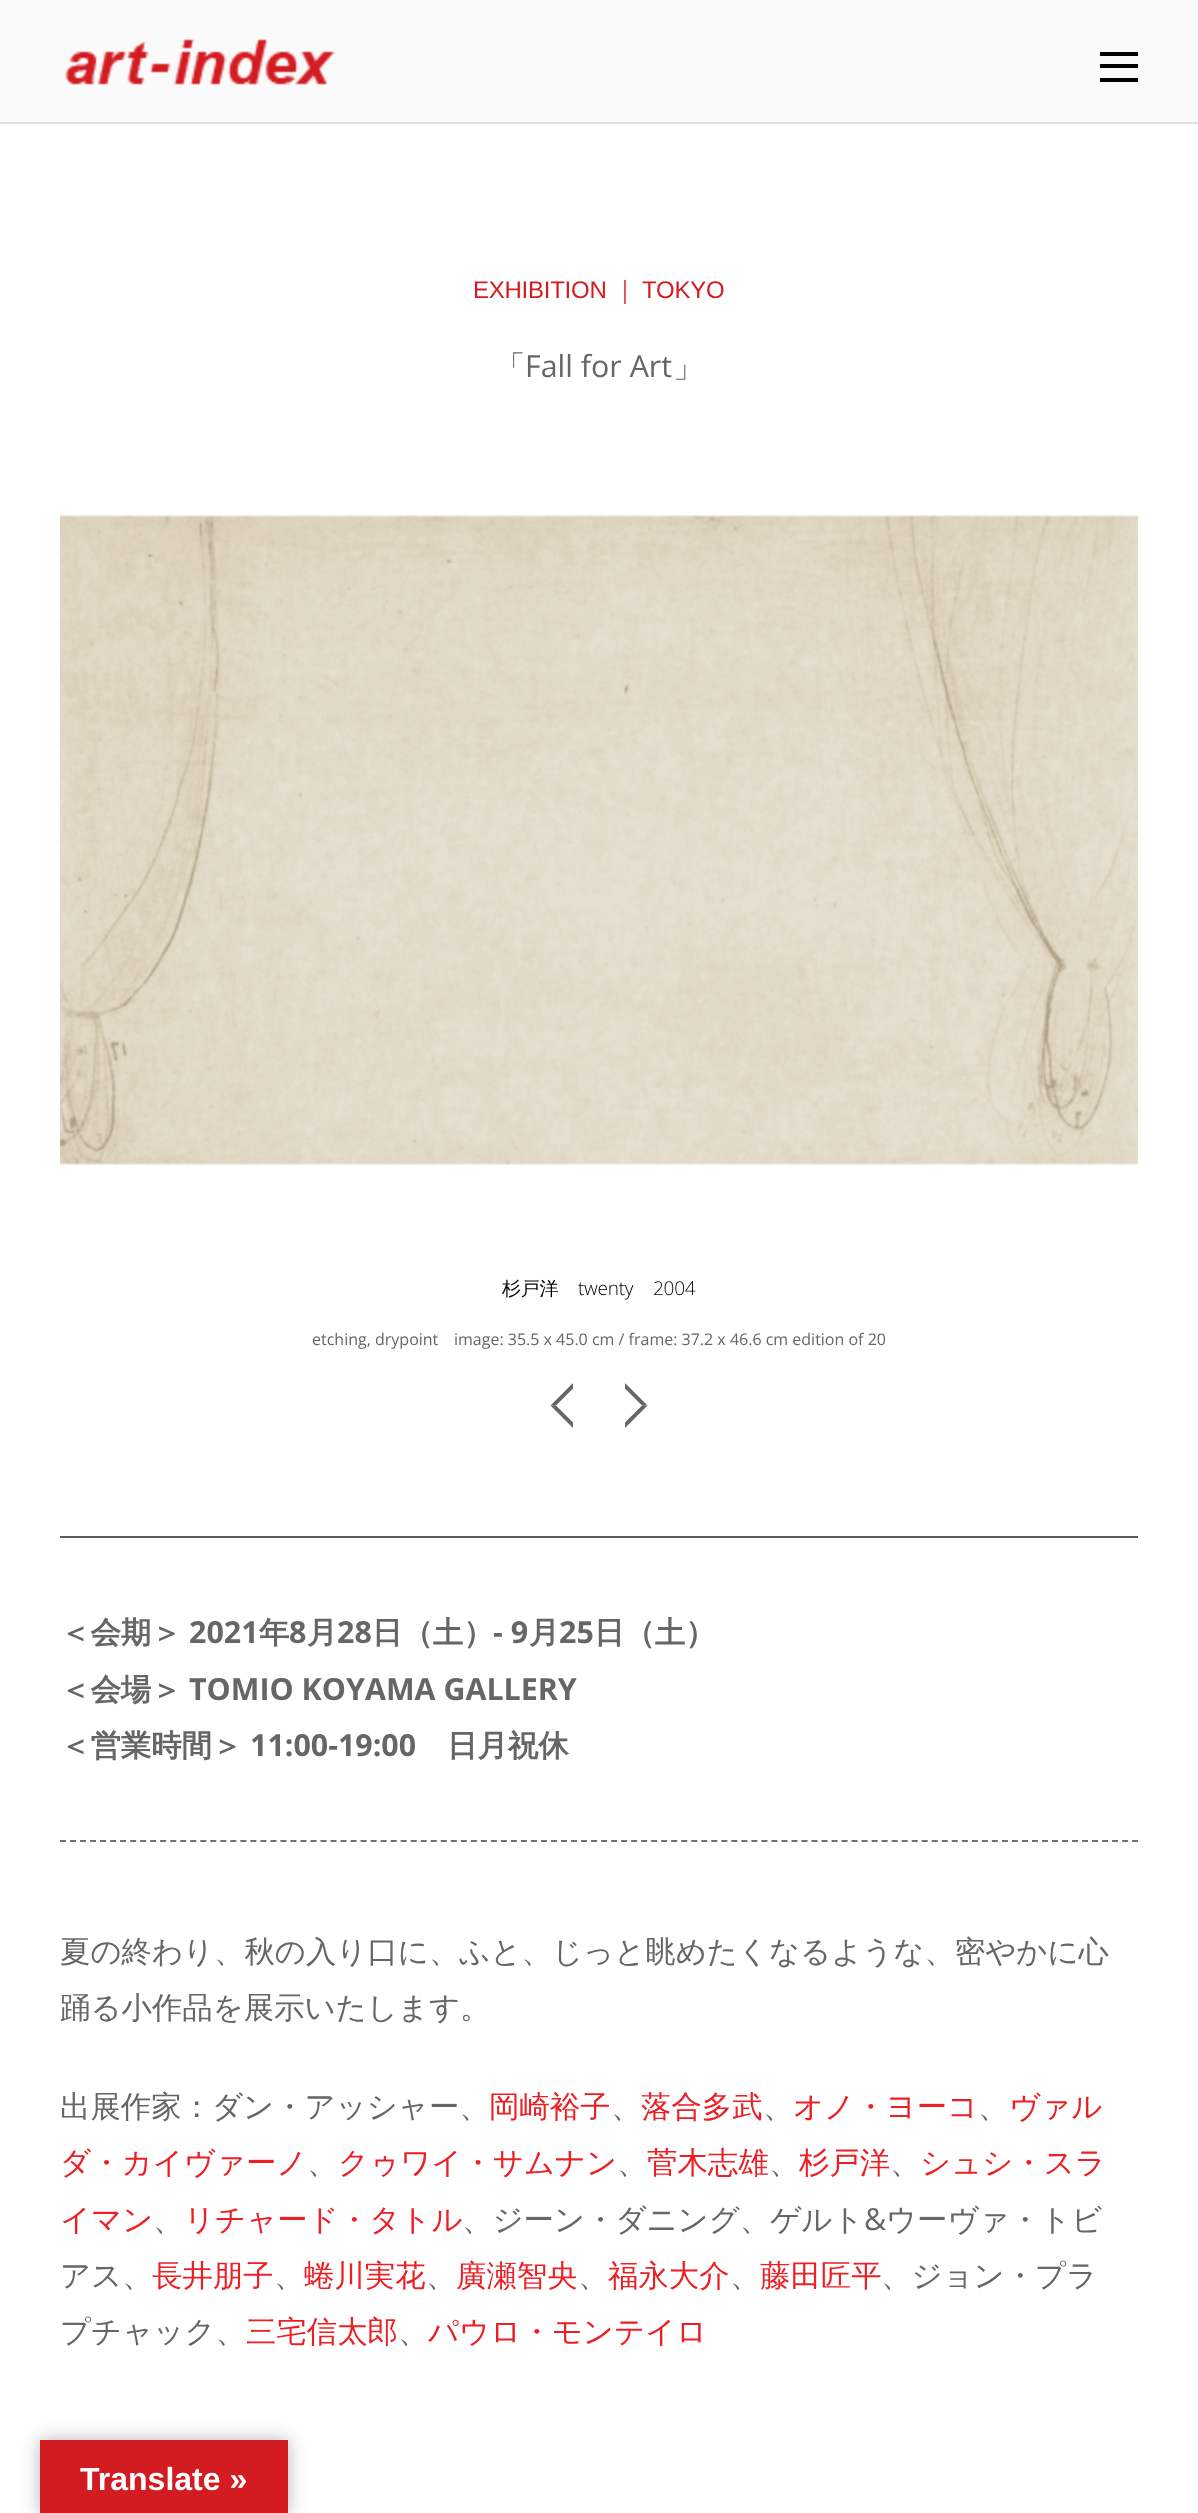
<!DOCTYPE html>
<meta charset="utf-8">
<style>body { margin: 0 } canvas { display: block }</style>
<canvas id="canvas" width="1198" height="2513"></canvas>
<script type="module">
  const canvas = document.getElementById("canvas");
  const ctx = canvas.getContext("2d");
  ctx.miterLimit = 4;
  ctx.fontKerning = "normal";
  async function loadImage(src) {
    const img = new Image();
    img.src = src;
    await img.decode();
    return img;
  }

  ctx.fillStyle = "#ffffff";
  ctx.fillRect(0, 0, 1198, 2513);
  ctx.fillStyle = "#fafafa";
  ctx.fillRect(0, 0, 1198, 122);
  ctx.fillStyle = "#e1e1e1";
  ctx.fillRect(0, 122, 1198, 2);
  ctx.drawImage(await loadImage("img1.png"), 65, 39, 270, 46);
  ctx.fillStyle = "#000000";
  ctx.fillRect(1100, 78, 38, 4);
  ctx.fillRect(1100, 52, 38, 4);
  ctx.fillRect(1100, 64, 38, 4);
  ctx.letterSpacing = "-0.25px";
  ctx.font = "24px Liberation Sans";
  ctx.fillStyle = "#d21c22";
  ctx.fillText("EXHIBITION", 473, 298);
  ctx.font = "500 24px WenQuanYi Zen Hei";
  ctx.fillText("｜", 613, 298);
  ctx.font = "24px Liberation Sans";
  ctx.fillText("TOKYO", 642, 298);
  ctx.letterSpacing = "0px";
  ctx.font = "500 30.4px WenQuanYi Zen Hei";
  ctx.fillStyle = "#666666";
  ctx.fillText("「", 495, 377);
  ctx.font = "30.4px Open Sans";
  ctx.fillText("Fall for Art", 525, 377);
  ctx.font = "500 30.4px WenQuanYi Zen Hei";
  ctx.fillText("」", 673, 377);
  ctx.drawImage(await loadImage("img2.png"), 60, 515, 1078, 650);
  ctx.letterSpacing = "-0.25px";
  ctx.font = "500 19px WenQuanYi Zen Hei";
  ctx.fillStyle = "#000000";
  ctx.fillText("杉戸洋", 502, 1295);
  ctx.font = "300 19px Open Sans";
  ctx.fillText("twenty", 578, 1295);
  ctx.fillText("2004", 653, 1295);
  ctx.letterSpacing = "0px";
  ctx.font = "16px Open Sans";
  ctx.fillStyle = "#666666";
  ctx.fillText("etching, drypoint", 312, 1345);
  ctx.fillText("image: 35.5 x 45.0 cm / frame: 37.2 x 46.6 cm edition of 20", 454, 1345);
  ctx.beginPath();
  ctx.moveTo(573, 1428);
  ctx.lineTo(550.5, 1405.5);
  ctx.lineTo(556, 1405.5);
  ctx.lineTo(573, 1422.5);
  ctx.closePath();
  ctx.fill();
  ctx.beginPath();
  ctx.moveTo(550.5, 1405.5);
  ctx.lineTo(573, 1383);
  ctx.lineTo(573, 1388.5);
  ctx.lineTo(556, 1405.5);
  ctx.closePath();
  ctx.fill();
  ctx.beginPath();
  ctx.moveTo(625, 1383);
  ctx.lineTo(647.5, 1405.5);
  ctx.lineTo(642, 1405.5);
  ctx.lineTo(625, 1388.5);
  ctx.closePath();
  ctx.fill();
  ctx.beginPath();
  ctx.moveTo(647.5, 1405.5);
  ctx.lineTo(625, 1428);
  ctx.lineTo(625, 1422.5);
  ctx.lineTo(642, 1405.5);
  ctx.closePath();
  ctx.fill();
  ctx.fillStyle = "#5c5c5c";
  ctx.fillRect(60, 1536, 1078, 2);
  ctx.font = "bold 30.4px WenQuanYi Zen Hei";
  ctx.fillStyle = "#666666";
  ctx.fillText("＜会期＞", 60, 1643);
  ctx.font = "bold 30.4px Open Sans";
  ctx.fillText("2021", 189, 1643);
  ctx.font = "bold 30.4px WenQuanYi Zen Hei";
  ctx.fillText("年", 259, 1643);
  ctx.font = "bold 30.4px Open Sans";
  ctx.fillText("8", 289, 1643);
  ctx.font = "bold 30.4px WenQuanYi Zen Hei";
  ctx.fillText("月", 307, 1643);
  ctx.font = "bold 30.4px Open Sans";
  ctx.fillText("28", 337, 1643);
  ctx.font = "bold 30.4px WenQuanYi Zen Hei";
  ctx.fillText("日（土）", 372, 1643);
  ctx.font = "bold 30.4px Open Sans";
  ctx.fillText("- 9", 493, 1643);
  ctx.font = "bold 30.4px WenQuanYi Zen Hei";
  ctx.fillText("月", 529, 1643);
  ctx.font = "bold 30.4px Open Sans";
  ctx.fillText("25", 559, 1643);
  ctx.font = "bold 30.4px WenQuanYi Zen Hei";
  ctx.fillText("日（土）", 594, 1643);
  ctx.fillText("＜会場＞", 60, 1700);
  ctx.font = "bold 30.4px Open Sans";
  ctx.fillText("TOMIO KOYAMA GALLERY", 189, 1700);
  ctx.font = "bold 30.4px WenQuanYi Zen Hei";
  ctx.fillText("＜営業時間＞", 60, 1756);
  ctx.font = "bold 30.4px Open Sans";
  ctx.fillText("11:00-19:00", 250, 1756);
  ctx.font = "bold 30.4px WenQuanYi Zen Hei";
  ctx.fillText("日月祝休", 447, 1756);
  ctx.beginPath();
  ctx.moveTo(60, 1841);
  ctx.lineTo(1138, 1841);
  ctx.strokeStyle = "#707070";
  ctx.lineWidth = 2;
  ctx.setLineDash([6, 4.02]);
  ctx.stroke();
  ctx.font = "500 30.4px WenQuanYi Zen Hei";
  ctx.fillText("夏の終わり、秋の入り口に、ふと、じっと眺めたくなるような、密やかに心", 60, 1962);
  ctx.fillText("踊る小作品を展示いたします。", 60, 2018);
  ctx.fillText("出展作家：ダン・アッシャー、", 60, 2117);
  ctx.fillStyle = "#ed1e24";
  ctx.fillText("岡崎裕子", 489, 2117);
  ctx.fillStyle = "#666666";
  ctx.fillText("、", 611, 2117);
  ctx.fillStyle = "#ed1e24";
  ctx.fillText("落合多武", 641, 2117);
  ctx.fillStyle = "#666666";
  ctx.fillText("、", 763, 2117);
  ctx.fillStyle = "#ed1e24";
  ctx.fillText("オノ・ヨーコ", 793, 2117);
  ctx.fillStyle = "#666666";
  ctx.fillText("、", 978, 2117);
  ctx.fillStyle = "#ed1e24";
  ctx.fillText("ヴァル", 1009, 2117);
  ctx.fillText("ダ・カイヴァーノ", 60, 2173);
  ctx.fillStyle = "#666666";
  ctx.fillText("、", 307, 2173);
  ctx.fillStyle = "#ed1e24";
  ctx.fillText("クゥワイ・サムナン", 338, 2173);
  ctx.fillStyle = "#666666";
  ctx.fillText("、", 617, 2173);
  ctx.fillStyle = "#ed1e24";
  ctx.fillText("菅木志雄", 647, 2173);
  ctx.fillStyle = "#666666";
  ctx.fillText("、", 769, 2173);
  ctx.fillStyle = "#ed1e24";
  ctx.fillText("杉戸洋", 799, 2173);
  ctx.fillStyle = "#666666";
  ctx.fillText("、", 890, 2173);
  ctx.fillStyle = "#ed1e24";
  ctx.fillText("シュシ・スラ", 920, 2173);
  ctx.fillText("イマン", 60, 2230);
  ctx.fillStyle = "#666666";
  ctx.fillText("、", 153, 2230);
  ctx.fillStyle = "#ed1e24";
  ctx.fillText("リチャード・タトル", 184, 2230);
  ctx.fillStyle = "#666666";
  ctx.fillText("、ジーン・ダニング、ゲルト", 462, 2230);
  ctx.font = "30.4px Open Sans";
  ctx.fillText("&", 864, 2230);
  ctx.font = "500 30.4px WenQuanYi Zen Hei";
  ctx.fillText("ウーヴァ・トビ", 886, 2230);
  ctx.fillText("アス、", 60, 2286);
  ctx.fillStyle = "#ed1e24";
  ctx.fillText("長井朋子", 152, 2286);
  ctx.fillStyle = "#666666";
  ctx.fillText("、", 274, 2286);
  ctx.fillStyle = "#ed1e24";
  ctx.fillText("蜷川実花", 304, 2286);
  ctx.fillStyle = "#666666";
  ctx.fillText("、", 426, 2286);
  ctx.fillStyle = "#ed1e24";
  ctx.fillText("廣瀬智央", 456, 2286);
  ctx.fillStyle = "#666666";
  ctx.fillText("、", 578, 2286);
  ctx.fillStyle = "#ed1e24";
  ctx.fillText("福永大介", 608, 2286);
  ctx.fillStyle = "#666666";
  ctx.fillText("、", 730, 2286);
  ctx.fillStyle = "#ed1e24";
  ctx.fillText("藤田匠平", 760, 2286);
  ctx.fillStyle = "#666666";
  ctx.fillText("、ジョン・プラ", 881, 2286);
  ctx.fillText("プチャック、", 60, 2342);
  ctx.fillStyle = "#ed1e24";
  ctx.fillText("三宅信太郎", 246, 2342);
  ctx.fillStyle = "#666666";
  ctx.fillText("、", 398, 2342);
  ctx.fillStyle = "#ed1e24";
  ctx.fillText("パウロ・モンテイロ", 428, 2342);
  ctx.fillStyle = "rgba(0, 0, 0, 0.3)";
  ctx.filter = "blur(9px)";
  ctx.beginPath();
  ctx.rect(40, 2440, 248, 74);
  ctx.fill();
  ctx.filter = "none";
  ctx.fillStyle = "#d21c22";
  ctx.fillRect(40, 2440, 248, 73);
  ctx.font = "bold 32px Liberation Sans";
  ctx.fillStyle = "#ffffff";
  ctx.fillText("Translate »", 80, 2490);
</script>
